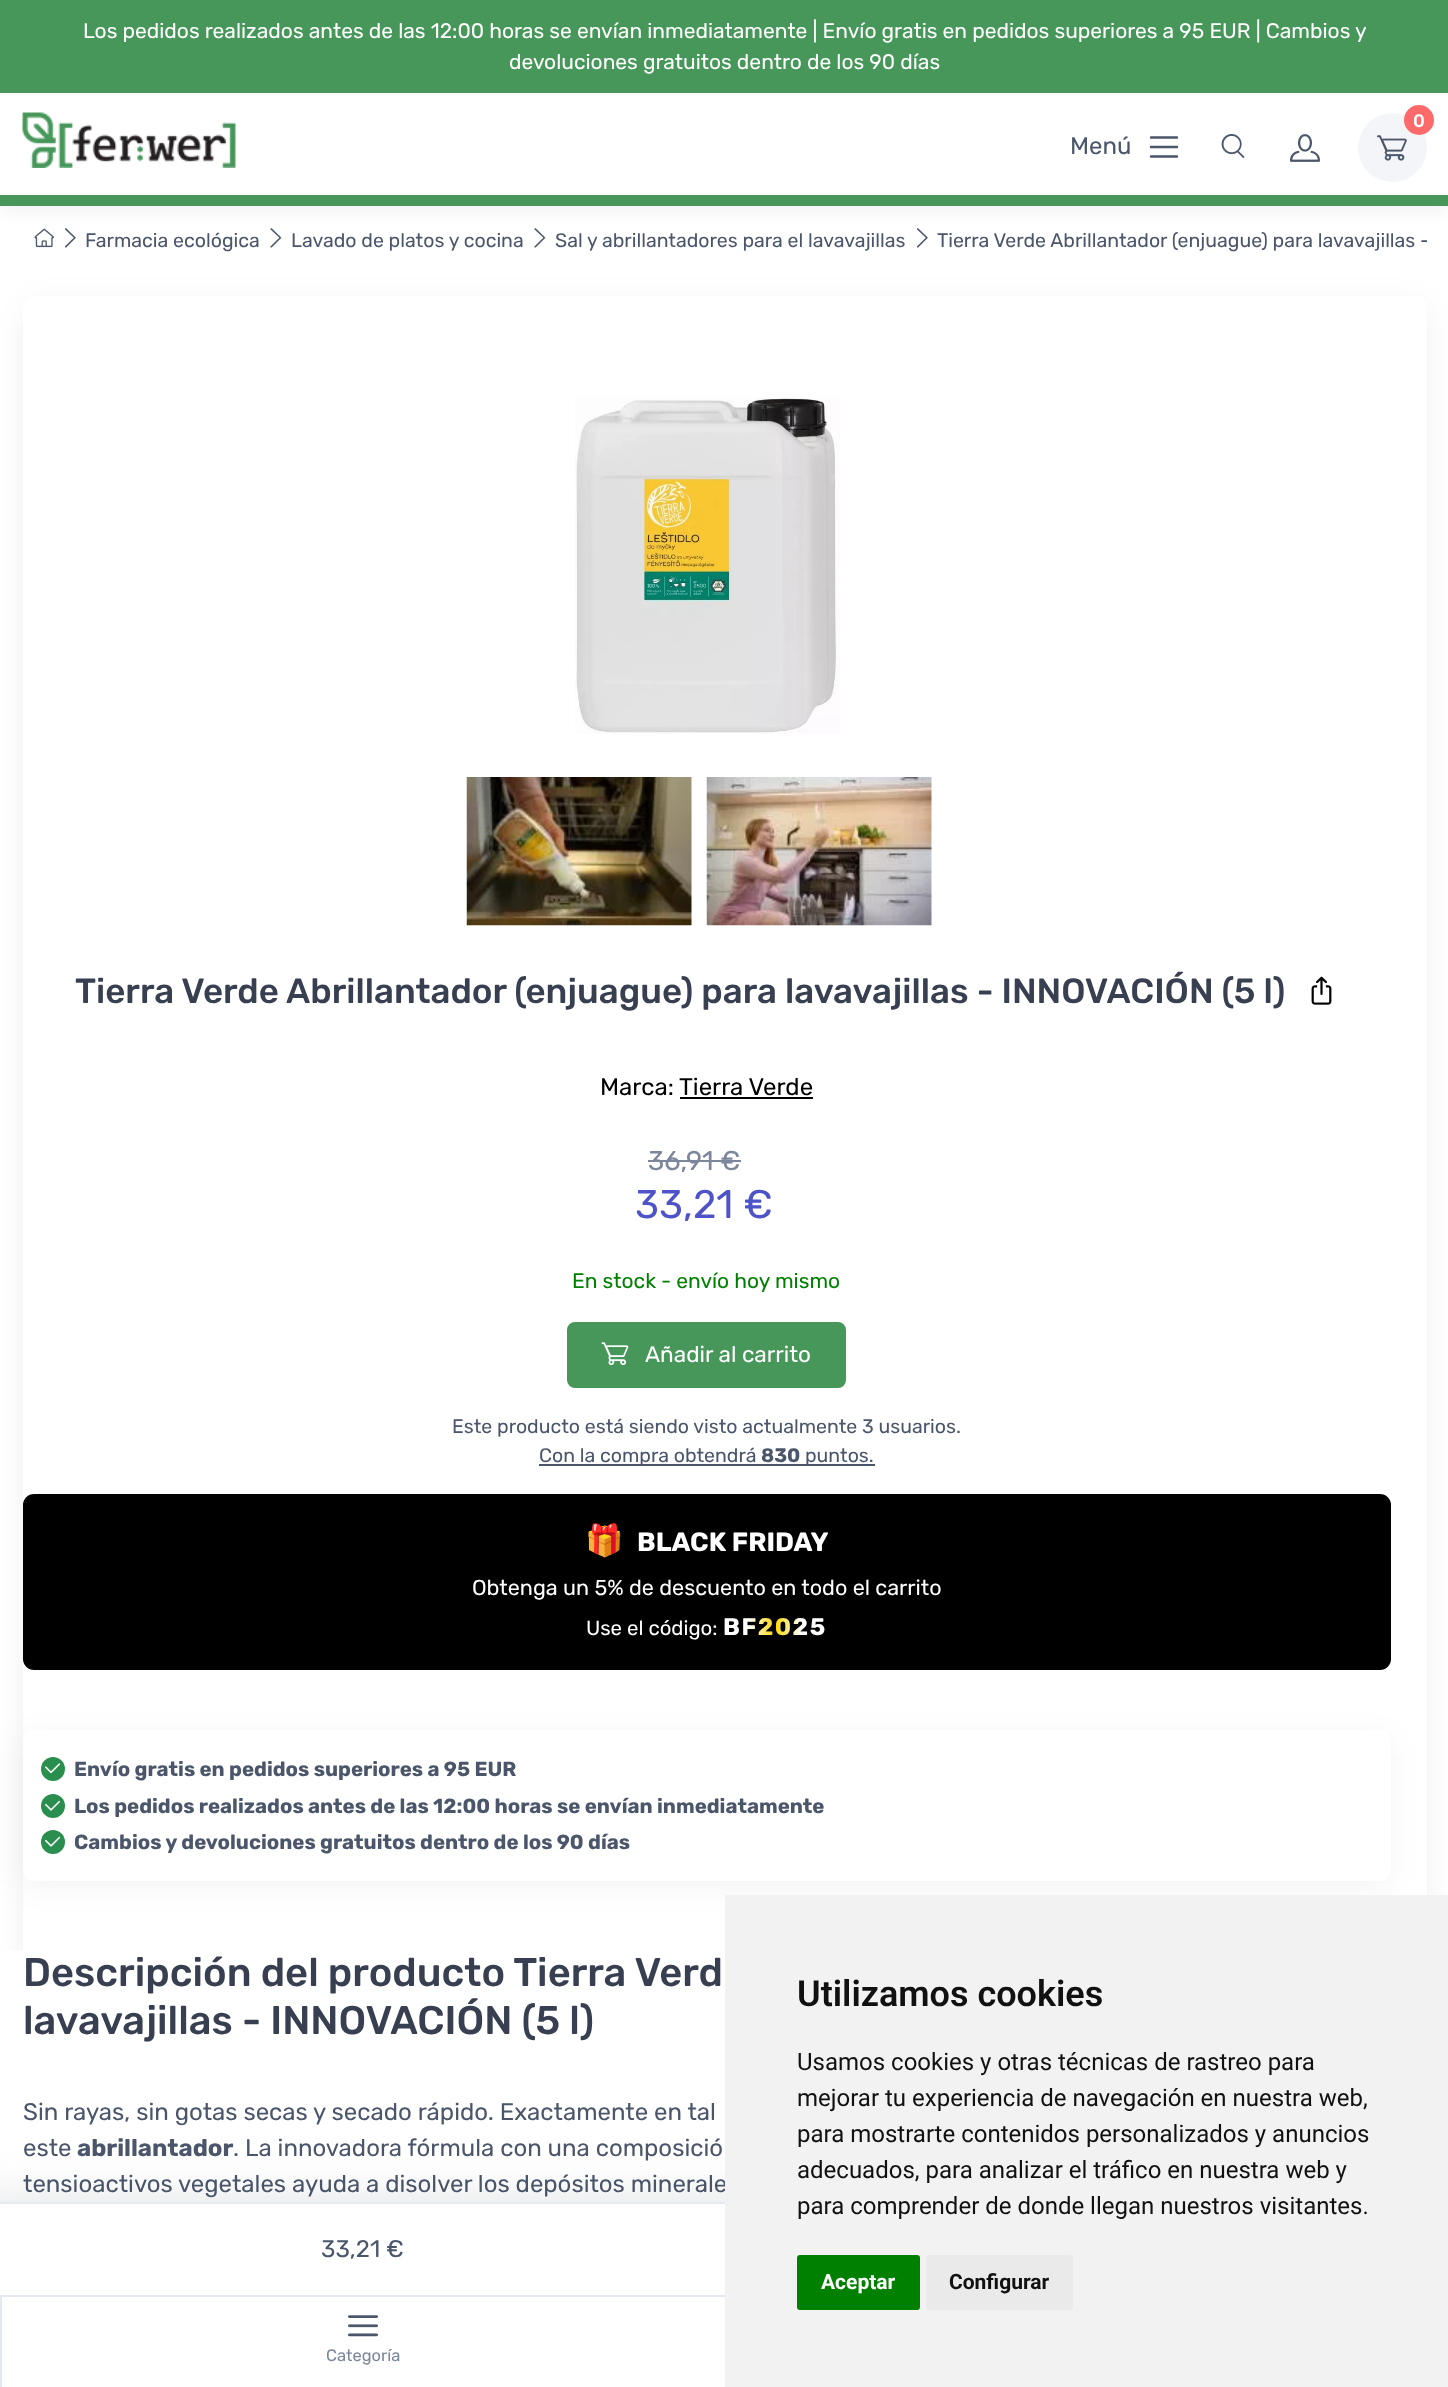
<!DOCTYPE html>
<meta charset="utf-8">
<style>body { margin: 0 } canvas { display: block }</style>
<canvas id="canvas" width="1448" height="2387"></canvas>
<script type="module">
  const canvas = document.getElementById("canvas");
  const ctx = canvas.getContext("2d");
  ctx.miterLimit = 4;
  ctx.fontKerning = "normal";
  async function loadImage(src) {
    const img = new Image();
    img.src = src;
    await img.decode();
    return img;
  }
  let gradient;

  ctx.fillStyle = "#ffffff";
  ctx.fillRect(0, 0, 1448, 2387);
  ctx.fillStyle = "rgba(0, 0, 0, 0.06)";
  ctx.filter = "blur(9px)";
  ctx.beginPath();
  ctx.rect(2, 8, 1446, 202);
  ctx.fill();
  ctx.filter = "none";
  ctx.fillStyle = "#469759";
  ctx.fillRect(0, 0, 1448, 93);
  ctx.font = "21px Rubik";
  ctx.fillStyle = "#ffffff";
  ctx.fillText("Los pedidos realizados antes de las 12:00 horas se envían inmediatamente | Envío gratis en pedidos superiores a 95 EUR | Cambios y", 83, 38);
  ctx.fillText("devoluciones gratuitos dentro de los 90 días", 509, 69);
  ctx.fillRect(0, 93, 1448, 102);
  ctx.drawImage(await loadImage("img1.png"), 22, 112, 214, 56);
  ctx.fillStyle = "#f3f5f9";
  ctx.beginPath();
  ctx.arc(1392.5, 147.5, 34.5, 0, Math.PI * 2);
  ctx.fill();
  ctx.fillStyle = "#fe696a";
  ctx.beginPath();
  ctx.arc(1419, 120, 15, 0, Math.PI * 2);
  ctx.fill();
  ctx.font = "500 18px Rubik";
  ctx.fillStyle = "#ffffff";
  ctx.fillText("0", 1413, 127);
  ctx.drawImage(await loadImage("img2.png"), 1377, 135, 30, 26);
  ctx.font = "24px Rubik";
  ctx.fillStyle = "#4b566b";
  ctx.fillText("Menú", 1070, 154);
  ctx.beginPath();
  ctx.moveTo(1151, 137.5);
  ctx.lineTo(1177, 137.5);
  ctx.moveTo(1151, 147);
  ctx.lineTo(1177, 147);
  ctx.moveTo(1151, 156.5);
  ctx.lineTo(1177, 156.5);
  ctx.strokeStyle = "#4b566b";
  ctx.lineWidth = 2.4;
  ctx.lineCap = "round";
  ctx.stroke();
  ctx.drawImage(await loadImage("img3.png"), 1221, 134, 24, 24);
  ctx.drawImage(await loadImage("img4.png"), 1290, 134, 30, 28);
  ctx.fillStyle = "#469759";
  ctx.fillRect(0, 195, 1448, 11);
  ctx.drawImage(await loadImage("img5.png"), 34, 228, 20, 20);
  ctx.drawImage(await loadImage("img6.png"), 64, 228, 12, 20);
  ctx.font = "19.5px Rubik";
  ctx.fillStyle = "#4b566b";
  ctx.fillText("Farmacia ecológica", 85, 247);
  ctx.drawImage(await loadImage("img7.png"), 270, 228, 12, 20);
  ctx.fillText("Lavado de platos y cocina", 291, 247);
  ctx.drawImage(await loadImage("img7.png"), 534, 228, 12, 20);
  ctx.fillText("Sal y abrillantadores para el lavavajillas", 555, 247);
  ctx.drawImage(await loadImage("img6.png"), 916, 228, 12, 20);
  ctx.save();
  ctx.beginPath();
  ctx.rect(23, 209, 1404, 60);
  ctx.clip();
  ctx.fillText("Tierra Verde Abrillantador (enjuague) para lavavajillas -", 937, 247);
  ctx.restore();
  ctx.fillStyle = "rgba(0, 0, 0, 0.1)";
  ctx.filter = "blur(18.5px)";
  ctx.beginPath();
  ctx.roundRect(32, 312, 1386, 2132, 1.5);
  ctx.fill();
  ctx.filter = "none";
  ctx.fillStyle = "#ffffff";
  ctx.beginPath();
  ctx.roundRect(23, 296, 1404, 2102, 11);
  ctx.fill();
  ctx.drawImage(await loadImage("img8.png"), 575, 397, 265, 337);
  ctx.drawImage(await loadImage("img9.png"), 466, 777, 226, 149);
  ctx.drawImage(await loadImage("img10.png"), 706, 777, 226, 149);
  ctx.font = "500 34.95px Rubik";
  ctx.fillStyle = "#373f50";
  ctx.fillText("Tierra Verde Abrillantador (enjuague) para lavavajillas - INNOVACIÓN (5 l)", 75, 1003);
  ctx.drawImage(await loadImage("img11.png"), 1311, 976, 21, 29);
  ctx.font = "24px Rubik";
  ctx.fillStyle = "#000000";
  ctx.fillText("Marca:", 600, 1095);
  ctx.fillText("Tierra Verde", 679, 1095);
  ctx.fillRect(680, 1097, 133, 2);
  ctx.font = "27px Rubik";
  ctx.fillStyle = "#7d879c";
  ctx.fillText("36,91 €", 648, 1170);
  ctx.fillRect(648, 1160, 93, 2);
  ctx.font = "39.9px Rubik";
  ctx.fillStyle = "#4e54c8";
  ctx.fillText("33,21 €", 635, 1218);
  ctx.font = "21px Rubik";
  ctx.fillStyle = "#008000";
  ctx.fillText("En stock - envío hoy mismo", 572, 1288);
  ctx.fillStyle = "#469759";
  ctx.beginPath();
  ctx.roundRect(568, 1323, 277, 64, 7);
  ctx.fill();
  ctx.strokeStyle = "#469759";
  ctx.lineWidth = 2;
  ctx.stroke();
  ctx.drawImage(await loadImage("img12.png"), 601, 1342, 28, 24);
  ctx.font = "22.5px Rubik";
  ctx.fillStyle = "#ffffff";
  ctx.fillText("Añadir al carrito", 645, 1362);
  ctx.font = "19.5px Rubik";
  ctx.fillStyle = "#4b566b";
  ctx.fillText("Este producto está siendo visto actualmente 3 usuarios.", 452, 1433);
  ctx.fillRect(539, 1464, 336, 2);
  ctx.fillText("Con la compra obtendrá", 539, 1462);
  ctx.font = "bold 19.5px Rubik";
  ctx.fillText("830", 761, 1462);
  ctx.font = "19.5px Rubik";
  ctx.fillText("puntos.", 805, 1462);
  ctx.fillStyle = "#000000";
  ctx.beginPath();
  ctx.roundRect(23, 1494, 1368, 176, 11);
  ctx.fill();
  ctx.font = "bold 31px Noto Color Emoji";
  ctx.fillStyle = "#ffffff";
  ctx.fillText("🎁", 585, 1551);
  ctx.font = "bold 26.5px Rubik";
  ctx.fillText("BLACK FRIDAY", 637, 1551);
  ctx.font = "21.6px Rubik";
  ctx.fillText("Obtenga un 5% de descuento en todo el carrito", 472, 1595);
  ctx.font = "20.4px Rubik";
  ctx.fillText("Use el código:", 586, 1635);
  ctx.letterSpacing = "1.5px";
  ctx.font = "bold 24px Rubik";
  gradient = ctx.createLinearGradient(723, 1627, 827, 1627);
  gradient.addColorStop(0.25, "#ffffff");
  gradient.addColorStop(0.5, "#ffd700");
  gradient.addColorStop(0.75, "#ffffff");
  ctx.fillStyle = gradient;
  ctx.fillText("BF2025", 723, 1635);
  ctx.fillStyle = "rgba(0, 0, 0, 0.05)";
  ctx.filter = "blur(15px)";
  ctx.beginPath();
  ctx.roundRect(24, 1737, 1365, 149, 9);
  ctx.fill();
  ctx.filter = "none";
  ctx.fillStyle = "#ffffff";
  ctx.beginPath();
  ctx.roundRect(23, 1730, 1368, 151, 11);
  ctx.fill();
  ctx.fillStyle = "#2a8f4e";
  ctx.beginPath();
  ctx.arc(53, 1769, 12, 0, Math.PI * 2);
  ctx.fill();
  ctx.drawImage(await loadImage("img13.png"), 45, 1763, 15, 11);
  ctx.letterSpacing = "0px";
  ctx.font = "bold 20.4px Rubik";
  ctx.fillStyle = "#4b566b";
  ctx.fillText("Envío gratis en pedidos superiores a 95 EUR", 74, 1776);
  ctx.fillStyle = "#2a8f4e";
  ctx.beginPath();
  ctx.arc(53, 1806, 12, 0, Math.PI * 2);
  ctx.fill();
  ctx.drawImage(await loadImage("img14.png"), 45, 1800, 15, 11);
  ctx.fillStyle = "#4b566b";
  ctx.fillText("Los pedidos realizados antes de las 12:00 horas se envían inmediatamente", 74, 1813);
  ctx.fillStyle = "#2a8f4e";
  ctx.beginPath();
  ctx.arc(53, 1842, 12, 0, Math.PI * 2);
  ctx.fill();
  ctx.drawImage(await loadImage("img14.png"), 45, 1836, 15, 11);
  ctx.fillStyle = "#4b566b";
  ctx.fillText("Cambios y devoluciones gratuitos dentro de los 90 días", 74, 1849);
  ctx.fillStyle = "#ffffff";
  ctx.beginPath();
  ctx.roundRect(0, 1950, 1413, 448, 11);
  ctx.fill();
  ctx.font = "500 39.9px Rubik";
  ctx.fillStyle = "#373f50";
  ctx.fillText("Descripción del producto Tierra Verd", 23, 1986);
  ctx.fillText("lavavajillas - INNOVACIÓN (5 l)", 23, 2034);
  ctx.font = "24px Rubik";
  ctx.fillStyle = "#4b566b";
  ctx.fillText("Sin rayas, sin gotas secas y secado rápido. Exactamente en tal", 23, 2120);
  ctx.fillText("este", 23, 2156);
  ctx.font = "bold 24px Rubik";
  ctx.fillText("abrillantador", 77, 2156);
  ctx.font = "24px Rubik";
  ctx.fillText(". La innovadora fórmula con una composició", 233, 2156);
  ctx.fillText("tensioactivos vegetales ayuda a disolver los depósitos minerale", 23, 2192);
  ctx.fillStyle = "rgba(43, 52, 69, 0.15)";
  ctx.filter = "blur(24px)";
  ctx.beginPath();
  ctx.rect(-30, 2202, 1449, 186);
  ctx.fill();
  ctx.filter = "none";
  ctx.fillStyle = "#ffffff";
  ctx.fillRect(0, 2204, 725, 183);
  ctx.fillStyle = "#e3e9ef";
  ctx.fillRect(0, 2202, 725, 2);
  ctx.fillRect(0, 2295, 725, 2);
  ctx.fillStyle = "#4b566b";
  ctx.fillText("33,21 €", 321, 2257);
  ctx.fillStyle = "#e3e9ef";
  ctx.fillRect(0, 2297, 2, 90);
  ctx.drawImage(await loadImage("img15.png"), 348, 2315, 30, 22);
  ctx.font = "16.5px Rubik";
  ctx.fillStyle = "#7d879c";
  ctx.fillText("Categoría", 326, 2361);
  ctx.fillStyle = "#f2f2f2";
  ctx.fillRect(725, 1895, 723, 492);
  ctx.font = "600 36px Roboto";
  ctx.fillStyle = "#111111";
  ctx.fillText("Utilizamos cookies", 797, 2006);
  ctx.font = "24px Roboto";
  ctx.fillText("Usamos cookies y otras técnicas de rastreo para", 797, 2070);
  ctx.fillText("mejorar tu experiencia de navegación en nuestra web,", 797, 2106);
  ctx.fillText("para mostrarte contenidos personalizados y anuncios", 797, 2142);
  ctx.fillText("adecuados, para analizar el tráfico en nuestra web y", 797, 2178);
  ctx.fillText("para comprender de donde llegan nuestros visitantes.", 797, 2214);
  ctx.fillStyle = "#008000";
  ctx.beginPath();
  ctx.roundRect(797, 2255, 123, 55, 3);
  ctx.fill();
  ctx.font = "bold 21px Roboto";
  ctx.fillStyle = "#ffffff";
  ctx.fillText("Aceptar", 821, 2289);
  ctx.fillStyle = "#eaeaea";
  ctx.beginPath();
  ctx.roundRect(926, 2255, 147, 55, 3);
  ctx.fill();
  ctx.fillStyle = "#111111";
  ctx.fillText("Configurar", 949, 2289);
</script>
